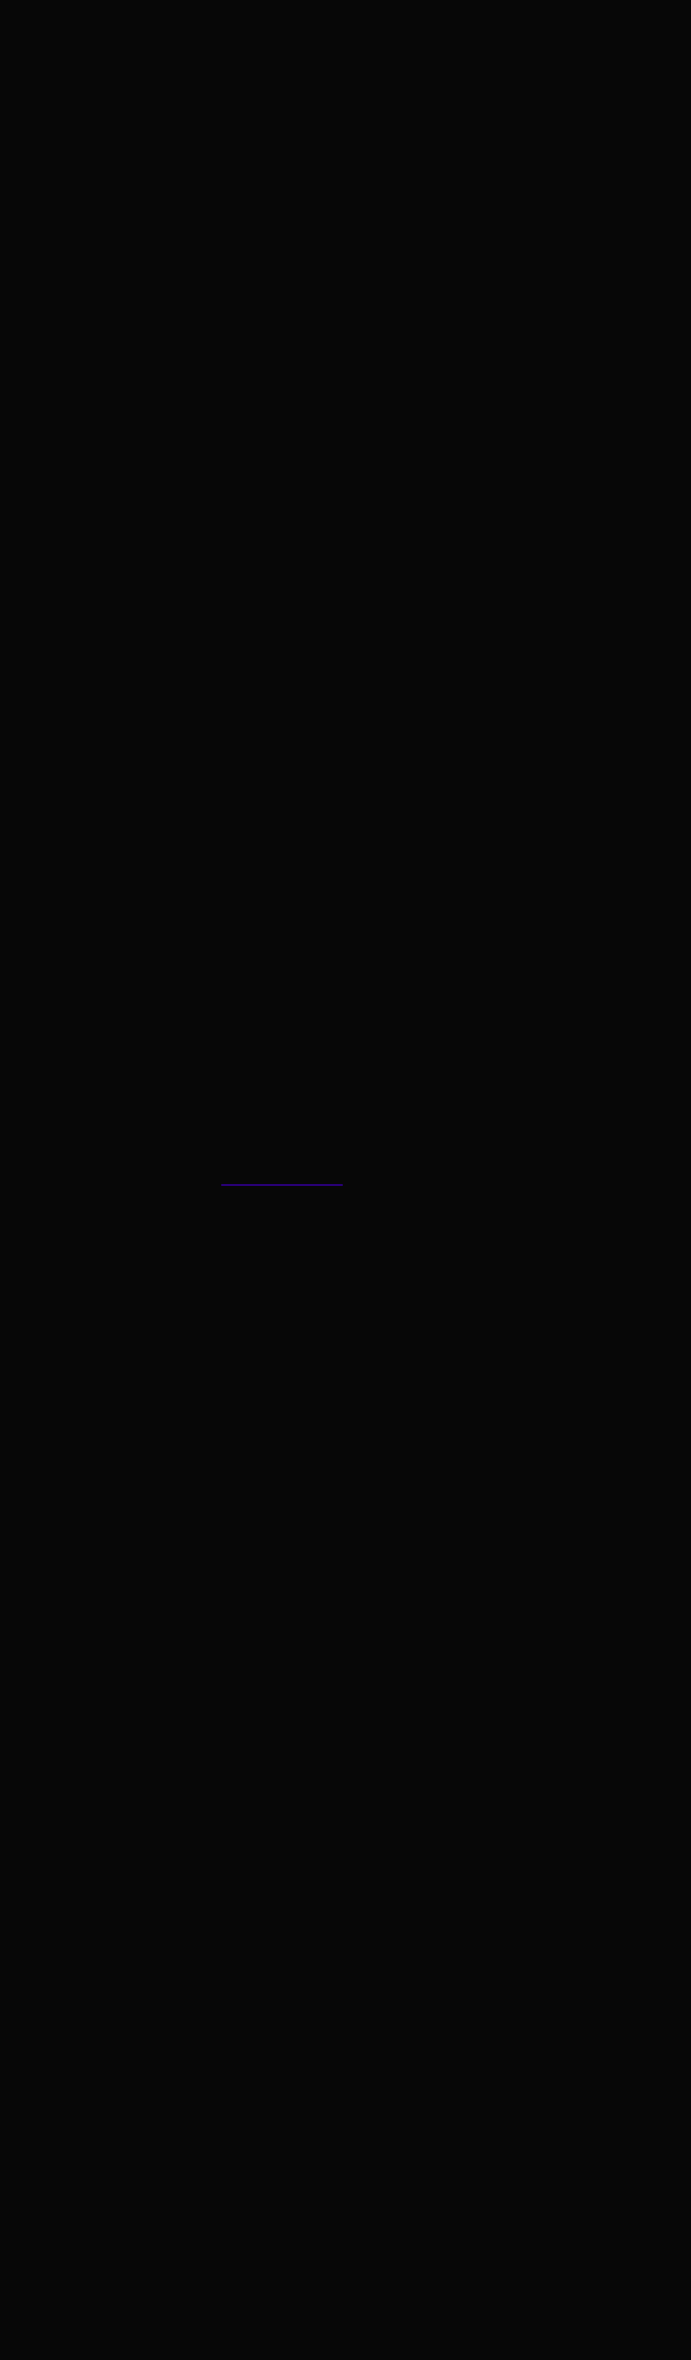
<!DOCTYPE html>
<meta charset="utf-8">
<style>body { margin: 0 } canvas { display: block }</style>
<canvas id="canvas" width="691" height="2360"></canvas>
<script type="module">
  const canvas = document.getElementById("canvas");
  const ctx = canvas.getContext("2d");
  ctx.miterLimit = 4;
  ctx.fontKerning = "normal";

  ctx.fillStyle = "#070707";
  ctx.fillRect(0, 0, 691, 2360);
  ctx.fillStyle = "#280075";
  ctx.beginPath();
  ctx.roundRect(221, 1184, 122, 2, 1);
  ctx.fill();
</script>
